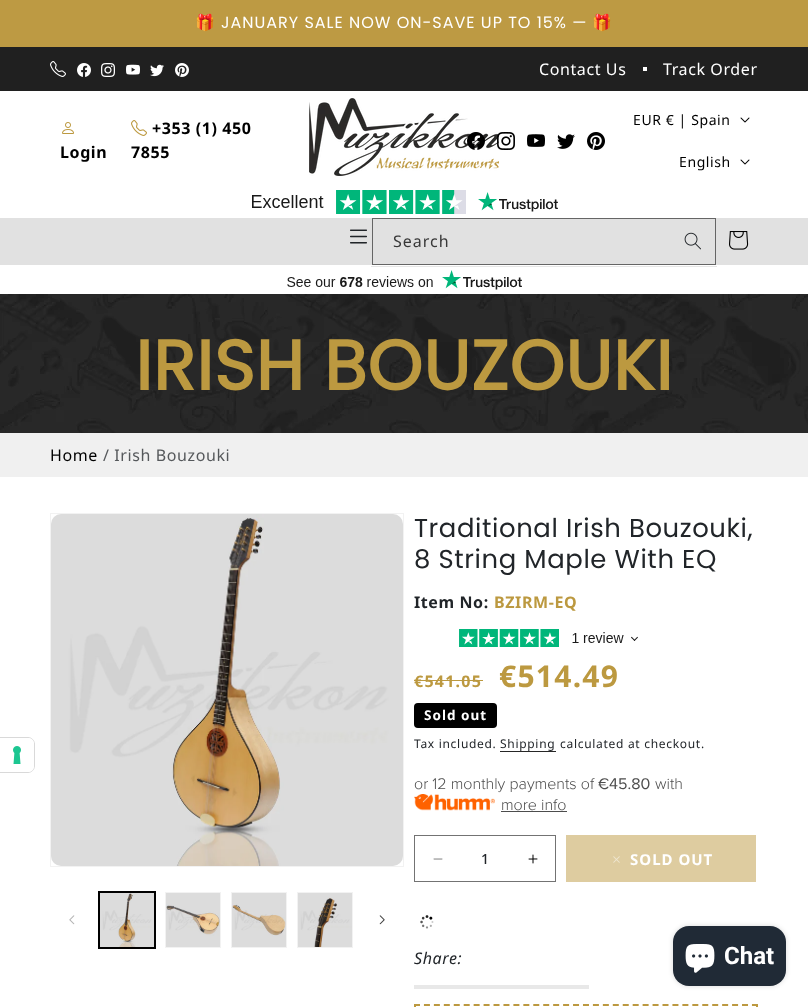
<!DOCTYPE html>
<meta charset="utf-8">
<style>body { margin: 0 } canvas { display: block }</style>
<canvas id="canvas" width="808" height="1007"></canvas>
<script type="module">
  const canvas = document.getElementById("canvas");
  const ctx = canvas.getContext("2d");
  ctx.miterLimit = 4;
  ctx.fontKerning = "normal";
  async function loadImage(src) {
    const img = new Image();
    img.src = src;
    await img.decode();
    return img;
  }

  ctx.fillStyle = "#ffffff";
  ctx.fillRect(0, 0, 808, 1007);
  ctx.fillStyle = "#bd9a43";
  ctx.fillRect(0, 0, 808, 47);
  ctx.letterSpacing = "1px";
  ctx.font = "16px Noto Color Emoji";
  ctx.fillStyle = "#ffffff";
  ctx.fillText("🎁", 195, 28);
  ctx.font = "16px Poppins";
  ctx.fillText("JANUARY SALE NOW ON-SAVE UP TO 15% —", 221, 28);
  ctx.font = "16px Noto Color Emoji";
  ctx.fillText("🎁", 592, 28);
  ctx.fillStyle = "#202020";
  ctx.fillRect(0, 47, 808, 44);
  ctx.drawImage(await loadImage("img1.png"), 50, 61, 16, 16);
  ctx.drawImage(await loadImage("img2.png"), 77, 63, 14, 14);
  ctx.drawImage(await loadImage("img3.png"), 101, 63, 14, 14);
  ctx.drawImage(await loadImage("img4.png"), 126, 64, 14, 11);
  ctx.drawImage(await loadImage("img5.png"), 150, 64, 14, 13);
  ctx.drawImage(await loadImage("img6.png"), 175, 63, 14, 14);
  ctx.letterSpacing = "0.6px";
  ctx.font = "16px Noto Sans";
  ctx.fillStyle = "#ffffff";
  ctx.fillText("Contact Us", 539, 75);
  ctx.fillRect(643, 67, 4, 4);
  ctx.fillText("Track Order", 663, 75);
  ctx.drawImage(await loadImage("img7.png"), 62, 122, 12, 12);
  ctx.font = "bold 16px Noto Sans";
  ctx.fillStyle = "#000000";
  ctx.fillText("Login", 60, 158);
  ctx.drawImage(await loadImage("img8.png"), 131, 120, 16, 16);
  ctx.fillText("+353 (1) 450", 152, 134);
  ctx.fillText("7855", 131, 158);
  ctx.drawImage(await loadImage("img9.png"), 309, 98, 190, 78);
  ctx.drawImage(await loadImage("img10.png"), 467, 132, 18, 18);
  ctx.drawImage(await loadImage("img11.png"), 497, 132, 18, 18);
  ctx.drawImage(await loadImage("img12.png"), 527, 134, 18, 13);
  ctx.drawImage(await loadImage("img13.png"), 557, 134, 18, 15);
  ctx.drawImage(await loadImage("img14.png"), 587, 132, 18, 18);
  ctx.font = "14px Noto Sans";
  ctx.fillText("EUR € | Spain", 633, 125);
  ctx.drawImage(await loadImage("img15.png"), 740, 117, 10, 6);
  ctx.fillText("English", 679, 167);
  ctx.drawImage(await loadImage("img15.png"), 740, 159, 10, 6);
  ctx.drawImage(await loadImage("img16.png"), 252, 190, 306, 24);
  ctx.fillStyle = "#e1e1e1";
  ctx.fillRect(0, 218, 808, 47);
  ctx.drawImage(await loadImage("img17.png"), 350, 229, 17, 15);
  ctx.drawImage(await loadImage("img18.png"), 684, 232, 17, 18);
  ctx.strokeStyle = "#656565";
  ctx.strokeRect(372.5, 218.5, 343, 46);
  ctx.letterSpacing = "1px";
  ctx.font = "16px Noto Sans";
  ctx.fillStyle = "#383838";
  ctx.fillText("Search", 393, 247);
  ctx.fillStyle = "#e6e6e6";
  ctx.beginPath();
  ctx.moveTo(717, 266);
  ctx.lineTo(717, 267);
  ctx.lineTo(716, 266);
  ctx.closePath();
  ctx.fill();
  ctx.fillStyle = "rgba(0, 0, 0, 0.1)";
  ctx.beginPath();
  ctx.moveTo(717, 267);
  ctx.lineTo(371, 267);
  ctx.lineTo(372, 266);
  ctx.lineTo(716, 266);
  ctx.closePath();
  ctx.fill();
  ctx.fillStyle = "#dadada";
  ctx.beginPath();
  ctx.moveTo(371, 267);
  ctx.lineTo(371, 266);
  ctx.lineTo(372, 266);
  ctx.closePath();
  ctx.fill();
  ctx.drawImage(await loadImage("img19.png"), 729, 231, 20, 19);
  ctx.drawImage(await loadImage("img20.png"), 287, 270, 235, 20);
  ctx.beginPath();
  ctx.moveTo(-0.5, 737.5);
  ctx.lineTo(28, 737.5);
  ctx.bezierCurveTo(31.5, 737.5, 34.5, 740.5, 34.5, 744);
  ctx.lineTo(34.5, 766);
  ctx.bezierCurveTo(34.5, 769.5, 31.5, 772.5, 28, 772.5);
  ctx.lineTo(-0.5, 772.5);
  ctx.closePath();
  ctx.strokeStyle = "#d9d9d9";
  ctx.stroke();
  ctx.fillStyle = "#ffffff";
  ctx.beginPath();
  ctx.roundRect(0, 738, 34, 34, [0, 6, 6, 0]);
  ctx.fill();
  ctx.drawImage(await loadImage("img21.png"), 13, 746, 8, 18);
  ctx.drawImage(await loadImage("img22.png"), 0, 294, 808, 139);
  ctx.letterSpacing = "0.6px";
  ctx.font = "bold 70px Poppins";
  ctx.fillStyle = "#bc9940";
  ctx.fillText("IRISH BOUZOUKI", 135, 390);
  ctx.fillStyle = "#f0f0f0";
  ctx.fillRect(0, 433, 808, 44);
  ctx.font = "16px Noto Sans";
  ctx.fillStyle = "#000000";
  ctx.fillText("Home", 50, 461);
  ctx.fillStyle = "#55585b";
  ctx.fillText("/ Irish Bouzouki", 103, 461);
  ctx.strokeStyle = "#f2f2f2";
  ctx.strokeRect(50.5, 513.5, 353, 353);
  ctx.drawImage(await loadImage("img23.png"), 51, 514, 352, 352);
  ctx.drawImage(await loadImage("img24.png"), 69, 915, 6, 10);
  ctx.strokeStyle = "#000000";
  ctx.strokeRect(98.5, 891.5, 57, 57);
  ctx.strokeRect(99.5, 892.5, 55, 55);
  ctx.drawImage(await loadImage("img25.png"), 100, 893, 54, 54);
  ctx.strokeStyle = "#f2f2f2";
  ctx.strokeRect(165.5, 892.5, 55, 55);
  ctx.drawImage(await loadImage("img26.png"), 166, 893, 54, 54);
  ctx.strokeRect(231.5, 892.5, 55, 55);
  ctx.drawImage(await loadImage("img27.png"), 232, 893, 54, 54);
  ctx.strokeRect(297.5, 892.5, 55, 55);
  ctx.drawImage(await loadImage("img28.png"), 298, 893, 54, 54);
  ctx.drawImage(await loadImage("img29.png"), 379, 915, 6, 10);
  ctx.font = "25.9px Poppins";
  ctx.fillStyle = "#212529";
  ctx.fillText("Traditional Irish Bouzouki,", 414, 537);
  ctx.fillText("8 String Maple With EQ", 414, 568);
  ctx.font = "bold 16px Noto Sans";
  ctx.fillText("Item No:", 414, 608);
  ctx.fillStyle = "#bc9940";
  ctx.fillText("BZIRM-EQ", 494, 608);
  ctx.drawImage(await loadImage("img30.png"), 459, 629, 179, 18);
  ctx.letterSpacing = "1.25px";
  ctx.fillText("€541.05", 414, 687);
  ctx.fillRect(414, 680, 69, 1);
  ctx.font = "bold 30px Noto Sans";
  ctx.fillText("€514.49", 499, 687);
  ctx.fillStyle = "#000000";
  ctx.beginPath();
  ctx.roundRect(414, 703, 83, 25, 4);
  ctx.fill();
  ctx.beginPath();
  ctx.roundRect(414.5, 703.5, 82, 24, 3.5);
  ctx.strokeStyle = "rgba(0, 0, 0, 0.1)";
  ctx.stroke();
  ctx.letterSpacing = "1px";
  ctx.font = "bold 13.5px Noto Sans";
  ctx.fillStyle = "#ffffff";
  ctx.fillText("Sold out", 424, 720);
  ctx.letterSpacing = "0.7px";
  ctx.font = "12px Noto Sans";
  ctx.fillStyle = "#212529";
  ctx.fillText("Tax included.", 414, 748);
  ctx.fillText("Shipping", 500, 748);
  ctx.fillStyle = "#262626";
  ctx.fillRect(500, 751, 56, 1);
  ctx.fillStyle = "#212529";
  ctx.fillText("calculated at checkout.", 560, 748);
  ctx.letterSpacing = "0px";
  ctx.font = "300 16px Proxima Nova";
  ctx.fillStyle = "#4d4d4d";
  ctx.fillText("or 12 monthly payments of", 414, 789);
  ctx.font = "16px Proxima Nova";
  ctx.fillText("€45.80", 598, 789);
  ctx.font = "300 16px Proxima Nova";
  ctx.fillText("with", 655, 789);
  ctx.drawImage(await loadImage("img31.png"), 414, 794, 81, 17);
  ctx.fillText("more info", 501, 810);
  ctx.fillRect(501, 811, 66, 1);
  ctx.drawImage(await loadImage("img32.png"), 433, 858, 10, 2);
  ctx.drawImage(await loadImage("img33.png"), 528, 854, 10, 10);
  ctx.strokeStyle = "#737373";
  ctx.strokeRect(414.5, 835.5, 141, 46);
  ctx.font = "500 14px Noto Sans";
  ctx.fillStyle = "#212529";
  ctx.fillText("1", 481, 864);
  ctx.fillStyle = "#decca0";
  ctx.fillRect(566, 835, 190, 47);
  ctx.drawImage(await loadImage("img34.png"), 613, 856, 7, 7);
  ctx.letterSpacing = "1px";
  ctx.font = "bold 15px Noto Sans";
  ctx.fillStyle = "#ffffff";
  ctx.fillText("SOLD OUT", 630, 865);
  ctx.drawImage(await loadImage("img35.png"), 420, 915, 14, 14);
  ctx.letterSpacing = "0.6px";
  ctx.font = "italic 16px Noto Sans";
  ctx.fillStyle = "#212529";
  ctx.fillText("Share:", 414, 964);
  ctx.fillStyle = "#e8e8e8";
  ctx.fillRect(414, 985, 175, 4);
  ctx.beginPath();
  ctx.moveTo(414, 1005);
  ctx.lineTo(758, 1005);
  ctx.strokeStyle = "#bc9940";
  ctx.lineWidth = 2;
  ctx.setLineDash([6, 3.94]);
  ctx.stroke();
  ctx.beginPath();
  ctx.moveTo(757, 1004);
  ctx.lineTo(757, 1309);
  ctx.setLineDash([6, 3.97]);
  ctx.stroke();
  ctx.beginPath();
  ctx.moveTo(415, 1004);
  ctx.lineTo(415, 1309);
  ctx.stroke();
  ctx.fillStyle = "rgba(0, 0, 0, 0.15)";
  ctx.filter = "blur(2.5px)";
  ctx.beginPath();
  ctx.roundRect(673, 926, 113, 60, 16);
  ctx.fill();
  ctx.filter = "none";
  ctx.fillStyle = "#202a36";
  ctx.beginPath();
  ctx.roundRect(673, 926, 113, 60, 16);
  ctx.fill();
  ctx.drawImage(await loadImage("img36.png"), 685, 944, 30, 29);
  ctx.letterSpacing = "0px";
  ctx.font = "bold 24px Roboto";
  ctx.fillStyle = "#ffffff";
  ctx.fillText("Chat", 724, 964);
</script>
